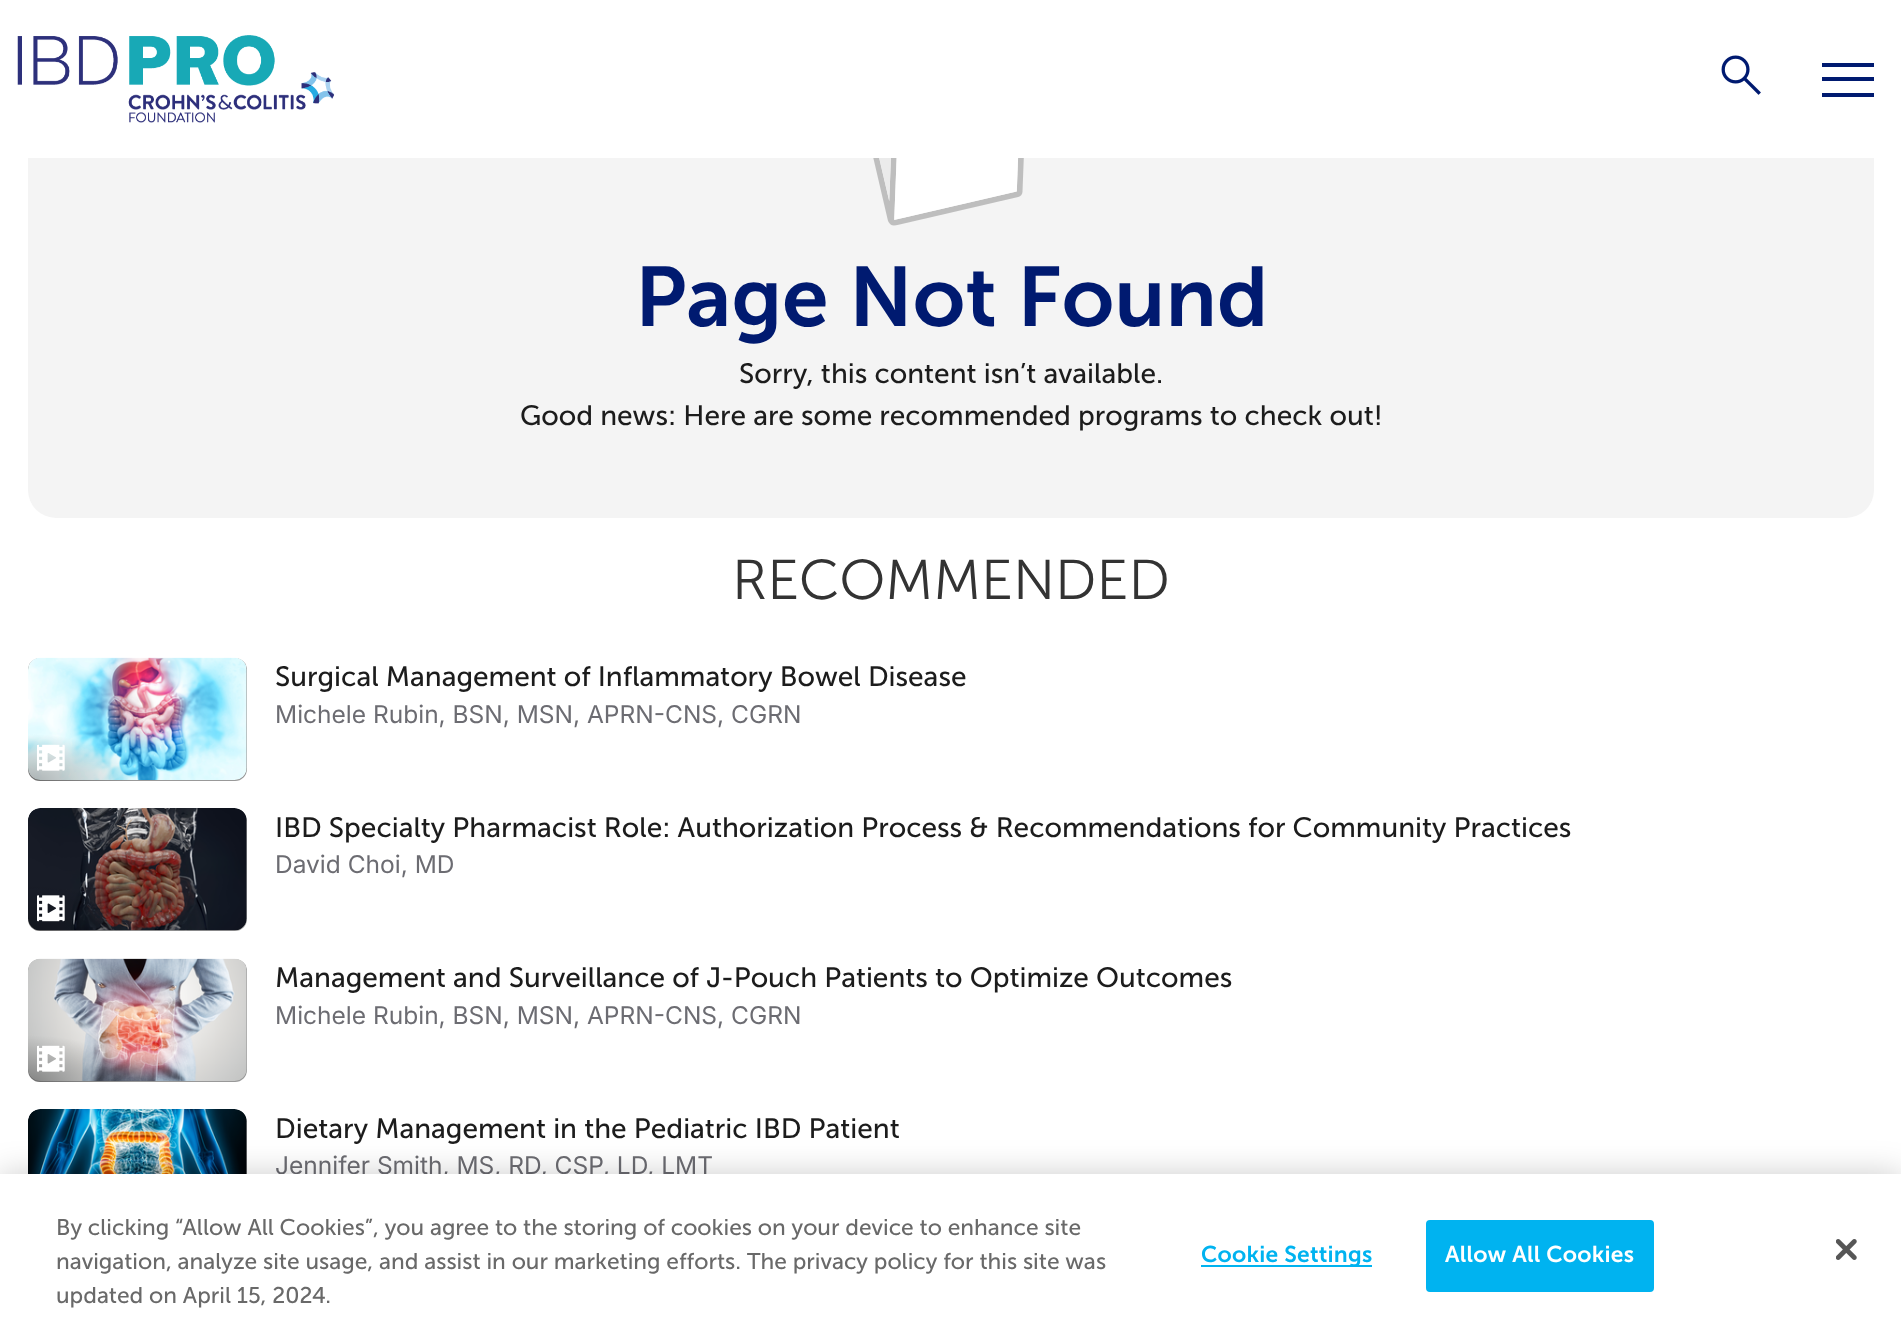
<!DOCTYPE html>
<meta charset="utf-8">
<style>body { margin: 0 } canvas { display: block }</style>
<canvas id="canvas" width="1901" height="1330"></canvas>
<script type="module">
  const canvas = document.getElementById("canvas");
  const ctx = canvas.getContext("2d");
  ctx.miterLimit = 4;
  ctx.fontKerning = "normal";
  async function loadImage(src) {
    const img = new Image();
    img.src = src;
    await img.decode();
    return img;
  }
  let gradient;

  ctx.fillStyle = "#ffffff";
  ctx.fillRect(0, 0, 1901, 1330);
  ctx.fillStyle = "#f4f4f4";
  ctx.beginPath();
  ctx.roundRect(28, -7, 1846, 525, 28);
  ctx.fill();
  ctx.fillStyle = "#ffffff";
  ctx.fillRect(28, 0, 1846, 158);
  ctx.drawImage(await loadImage("img1.png"), 17, 35, 318, 88);
  ctx.drawImage(await loadImage("img2.png"), 1721, 55, 40, 40);
  ctx.fillStyle = "#001a70";
  ctx.fillRect(1822, 63, 52, 4);
  ctx.fillRect(1822, 77, 52, 4);
  ctx.fillRect(1822, 93, 52, 4);
  ctx.drawImage(await loadImage("img3.png"), 873, 158, 151, 68);
  ctx.font = "600 84px Museo Sans";
  ctx.fillText("Page Not Found", 635, 326);
  ctx.font = "28px Museo Sans";
  ctx.fillStyle = "#1c1c1c";
  ctx.fillText("Sorry, this content isn’t available.", 739, 383);
  ctx.fillText("Good news: Here are some recommended programs to check out!", 520, 425);
  ctx.font = "300 56px Museo Sans";
  ctx.fillStyle = "#333333";
  ctx.fillText("RECOMMENDED", 732, 599);
  ctx.fillStyle = "#999999";
  ctx.beginPath();
  ctx.roundRect(28, 658, 219, 123, 12);
  ctx.fill();
  ctx.drawImage(await loadImage("img4.png"), 28, 657, 219, 123);
  gradient = ctx.createRadialGradient(28, 1778.02, 0, 28, 1778.02, 107);
  gradient.addColorStop(0, "rgba(0, 0, 0, 0.3)");
  gradient.addColorStop(1, "rgba(0, 0, 0, 0)");
  ctx.fillStyle = gradient;
  ctx.beginPath();
  ctx.roundRect(28, 658, 219, 123, 12);
  ctx.save();
  ctx.clip();
  ctx.scale(1, 47 / 107);
  ctx.fillRect(0, 0, 1901, 3028);
  ctx.restore();
  ctx.drawImage(await loadImage("img5.png"), 37, 744, 28, 27);
  ctx.font = "28px Museo Sans";
  ctx.fillStyle = "#1c1c1c";
  ctx.fillText("Surgical Management of Inflammatory Bowel Disease", 275, 686);
  ctx.font = "24.5px Inter";
  ctx.fillStyle = "#6c6c72";
  ctx.fillText("Michele Rubin, BSN, MSN, APRN-CNS, CGRN", 275, 723);
  ctx.fillStyle = "#999999";
  ctx.beginPath();
  ctx.roundRect(28, 809, 219, 122, 12);
  ctx.fill();
  ctx.drawImage(await loadImage("img6.png"), 28, 808, 219, 123);
  gradient = ctx.createRadialGradient(28, 2119.51, 0, 28, 2119.51, 107);
  gradient.addColorStop(0, "rgba(0, 0, 0, 0.3)");
  gradient.addColorStop(1, "rgba(0, 0, 0, 0)");
  ctx.fillStyle = gradient;
  ctx.beginPath();
  ctx.roundRect(28, 809, 219, 122, 12);
  ctx.save();
  ctx.clip();
  ctx.scale(1, 47 / 107);
  ctx.fillRect(0, 0, 1901, 3028);
  ctx.restore();
  ctx.drawImage(await loadImage("img7.png"), 37, 895, 28, 27);
  ctx.font = "28px Museo Sans";
  ctx.fillStyle = "#1c1c1c";
  ctx.fillText("IBD Specialty Pharmacist Role: Authorization Process & Recommendations for Community Practices", 275, 837);
  ctx.font = "24.5px Inter";
  ctx.fillStyle = "#6c6c72";
  ctx.fillText("David Choi, MD", 275, 873);
  ctx.fillStyle = "#999999";
  ctx.beginPath();
  ctx.roundRect(28, 959, 219, 123, 12);
  ctx.fill();
  ctx.drawImage(await loadImage("img8.png"), 28, 958, 219, 123);
  gradient = ctx.createRadialGradient(28, 2463.28, 0, 28, 2463.28, 107);
  gradient.addColorStop(0, "rgba(0, 0, 0, 0.3)");
  gradient.addColorStop(1, "rgba(0, 0, 0, 0)");
  ctx.fillStyle = gradient;
  ctx.beginPath();
  ctx.roundRect(28, 959, 219, 123, 12);
  ctx.save();
  ctx.clip();
  ctx.scale(1, 47 / 107);
  ctx.fillRect(0, 0, 1901, 3028);
  ctx.restore();
  ctx.drawImage(await loadImage("img9.png"), 37, 1045, 28, 27);
  ctx.font = "28px Museo Sans";
  ctx.fillStyle = "#1c1c1c";
  ctx.fillText("Management and Surveillance of J-Pouch Patients to Optimize Outcomes", 275, 987);
  ctx.font = "24.5px Inter";
  ctx.fillStyle = "#6c6c72";
  ctx.fillText("Michele Rubin, BSN, MSN, APRN-CNS, CGRN", 275, 1024);
  ctx.fillStyle = "#999999";
  ctx.beginPath();
  ctx.roundRect(28, 1110, 219, 122, 12);
  ctx.fill();
  ctx.drawImage(await loadImage("img10.png"), 28, 1109, 219, 65);
  ctx.font = "28px Museo Sans";
  ctx.fillStyle = "#1c1c1c";
  ctx.fillText("Dietary Management in the Pediatric IBD Patient", 275, 1138);
  ctx.font = "24.5px Inter";
  ctx.fillStyle = "#6c6c72";
  ctx.fillText("Jennifer Smith, MS, RD, CSP, LD, LMT", 275, 1174);
  ctx.fillStyle = "rgba(0, 0, 0, 0.2)";
  ctx.filter = "blur(16px)";
  ctx.beginPath();
  ctx.rect(0, 1174, 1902, 156);
  ctx.fill();
  ctx.filter = "none";
  ctx.fillStyle = "#ffffff";
  ctx.fillRect(0, 1174, 1901, 156);
  ctx.font = "22.75px Museo Sans";
  ctx.fillStyle = "#696969";
  ctx.fillText("By clicking “Allow All Cookies”, you agree to the storing of cookies on your device to enhance site", 56, 1235);
  ctx.fillText("navigation, analyze site usage, and assist in our marketing efforts.", 56, 1269);
  ctx.fillText("The privacy policy for this site was", 747, 1269);
  ctx.fillText("updated on April 15, 2024.", 56, 1303);
  ctx.fillStyle = "#00b3f0";
  ctx.fillRect(1201, 1265, 171, 2);
  ctx.letterSpacing = "0.25px";
  ctx.font = "600 22.75px Museo Sans";
  ctx.fillText("Cookie Settings", 1201, 1262);
  ctx.beginPath();
  ctx.roundRect(1427, 1221, 226, 70, 3);
  ctx.fill();
  ctx.strokeStyle = "#00b3f0";
  ctx.lineWidth = 2;
  ctx.stroke();
  ctx.fillStyle = "#ffffff";
  ctx.fillText("Allow All Cookies", 1445, 1262);
  ctx.drawImage(await loadImage("img11.png"), 1836, 1239, 21, 21);
</script>
